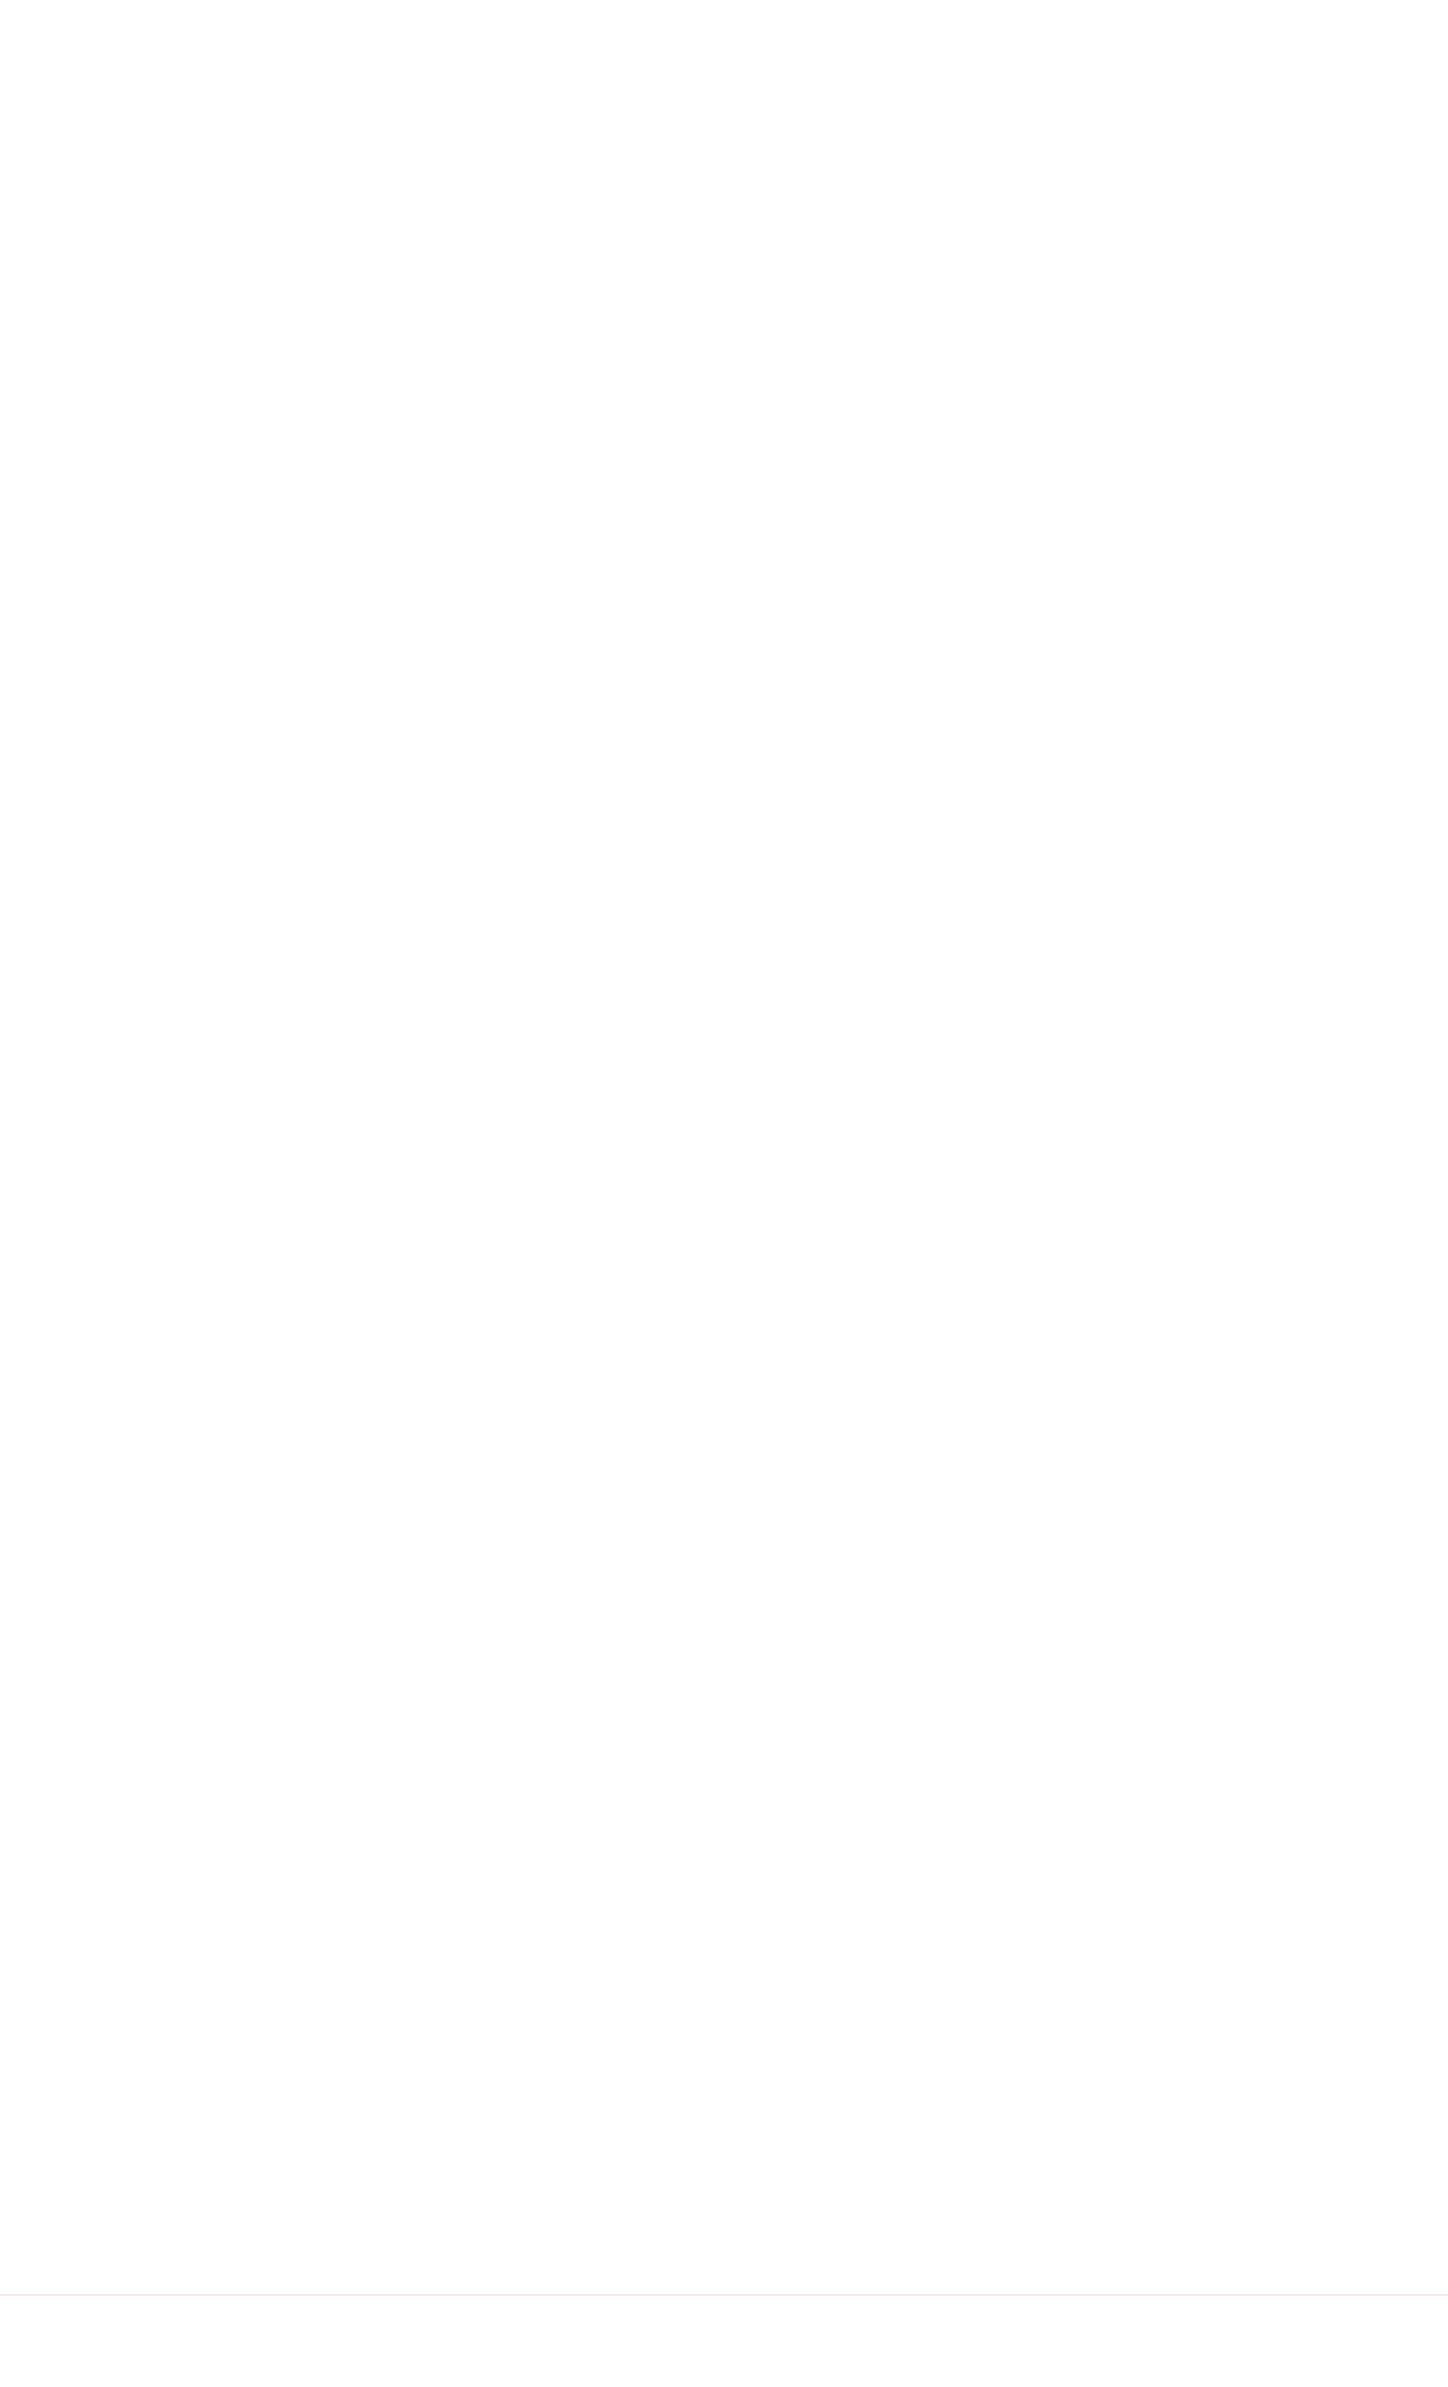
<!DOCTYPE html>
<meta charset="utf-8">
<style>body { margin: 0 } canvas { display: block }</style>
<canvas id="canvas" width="1448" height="2387"></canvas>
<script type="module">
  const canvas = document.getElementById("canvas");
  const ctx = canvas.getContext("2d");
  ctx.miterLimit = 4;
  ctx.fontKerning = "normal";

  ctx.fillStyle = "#ffffff";
  ctx.fillRect(0, 0, 1448, 2387);
  ctx.fillStyle = "#f2edea";
  ctx.fillRect(0, 2294, 1448, 2);
</script>
